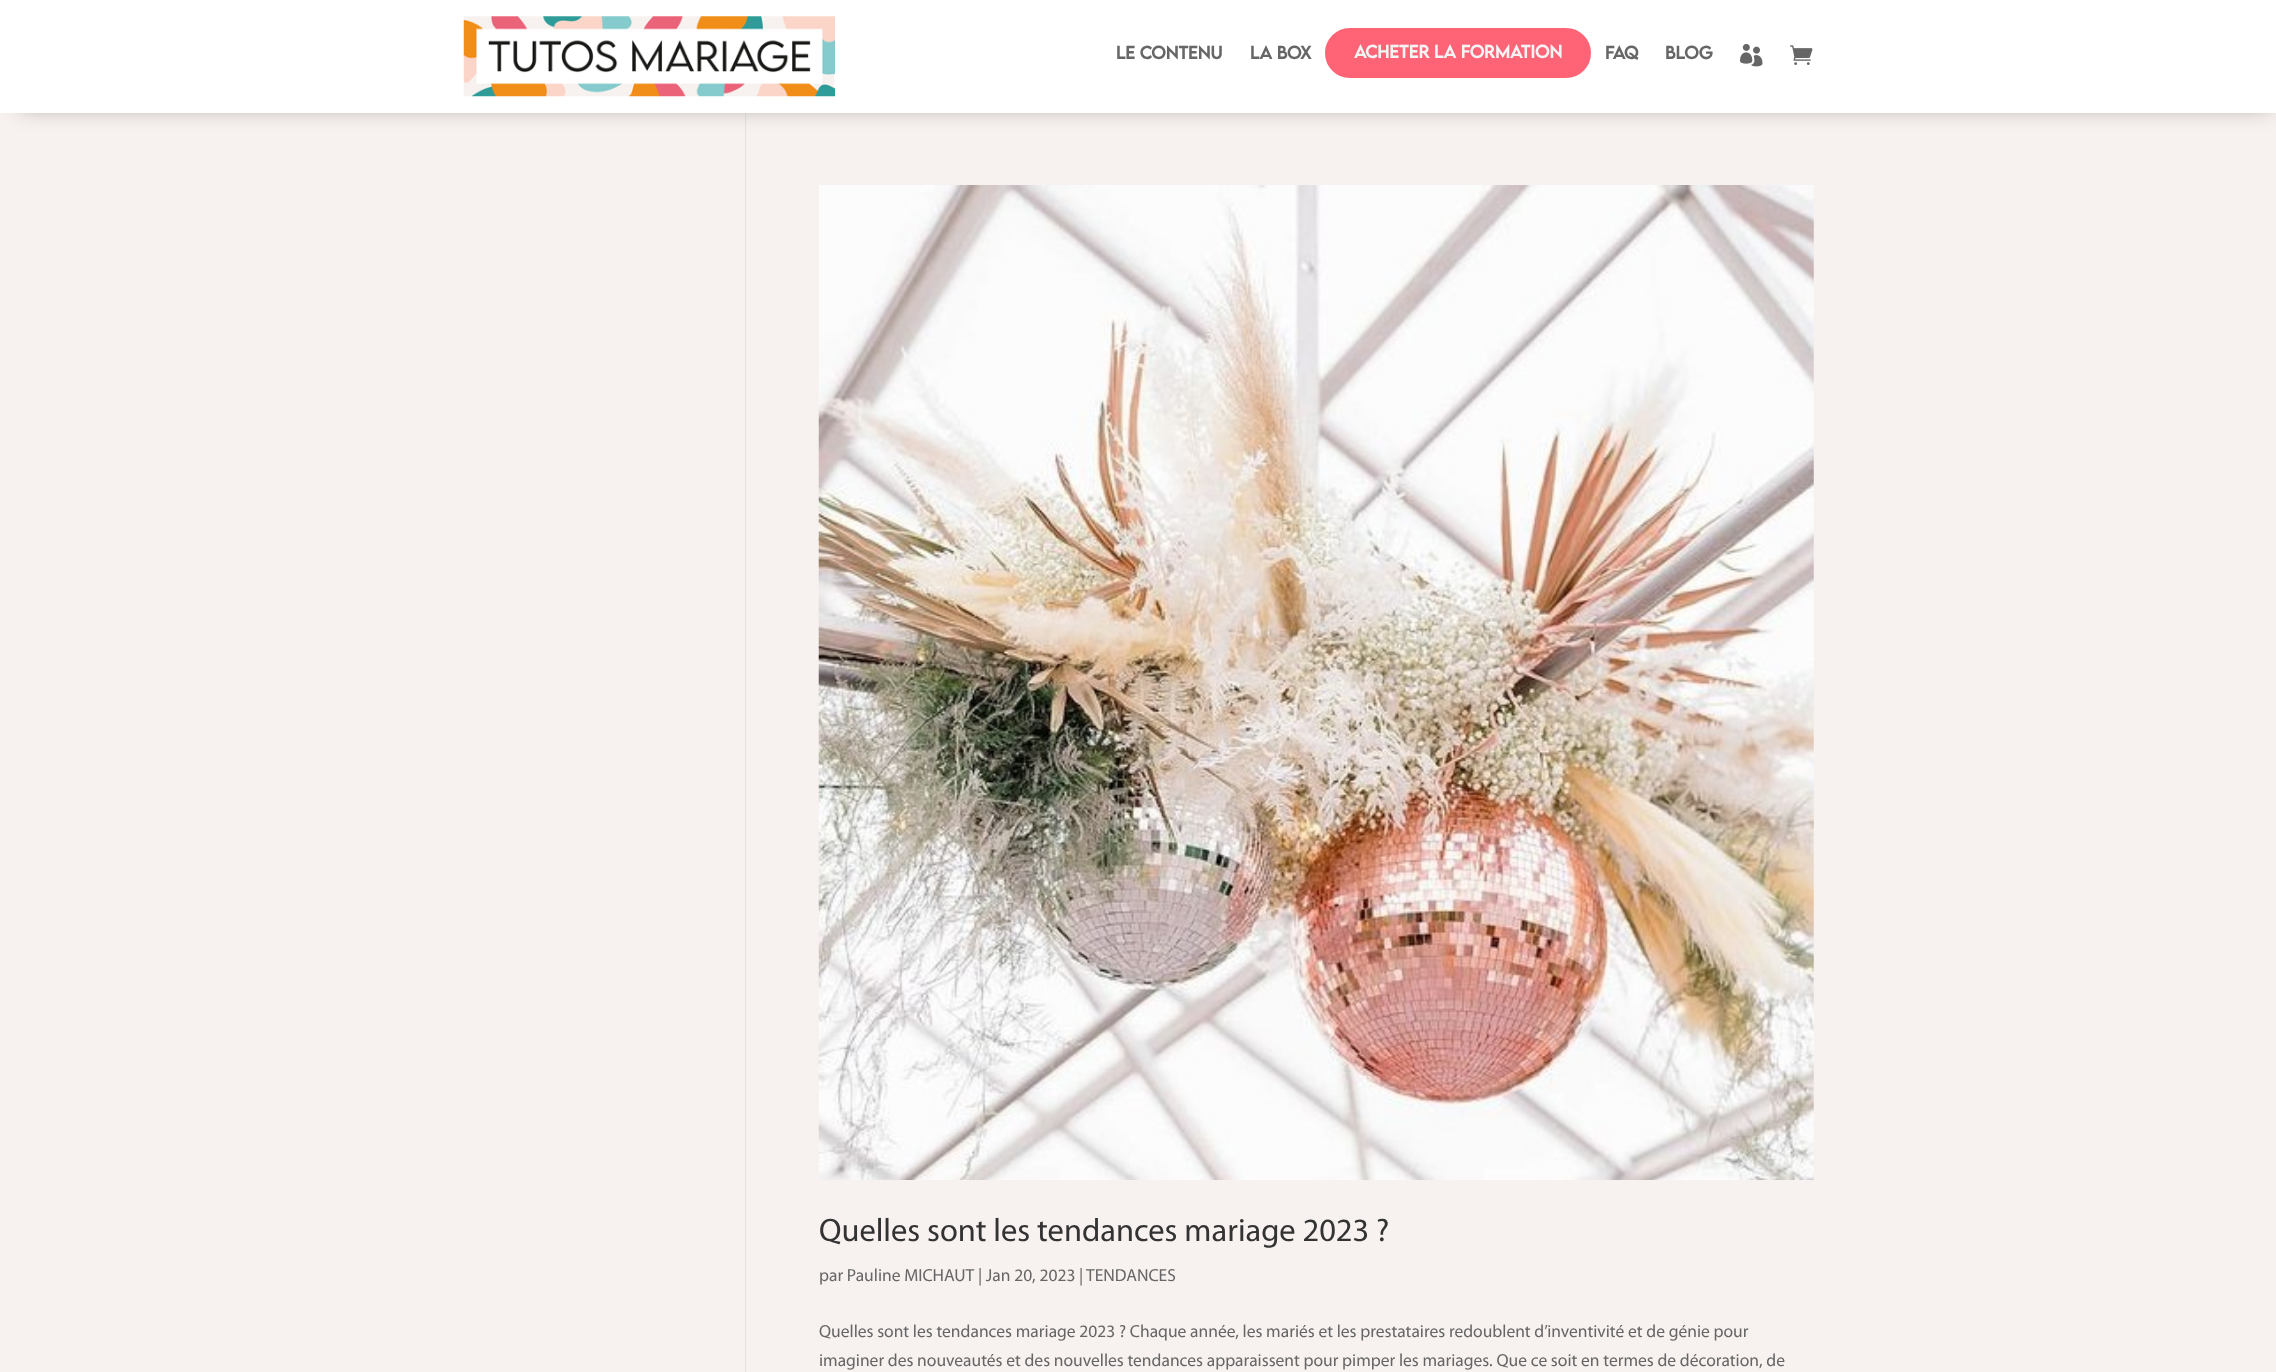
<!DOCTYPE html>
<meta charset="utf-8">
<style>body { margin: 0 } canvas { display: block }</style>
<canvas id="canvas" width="2276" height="1372"></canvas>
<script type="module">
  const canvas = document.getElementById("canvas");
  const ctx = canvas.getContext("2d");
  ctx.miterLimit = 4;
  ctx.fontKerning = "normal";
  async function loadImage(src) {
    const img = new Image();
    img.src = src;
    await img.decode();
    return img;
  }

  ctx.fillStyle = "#f7f1ef";
  ctx.fillRect(0, 0, 2276, 1372);
  ctx.fillStyle = "#e2e2e2";
  ctx.fillRect(745, 113, 1, 1259);
  ctx.fillStyle = "rgba(0, 0, 0, 0.3)";
  ctx.filter = "blur(11px)";
  ctx.beginPath();
  ctx.rect(20, 20, 2251, 88);
  ctx.fill();
  ctx.filter = "none";
  ctx.fillStyle = "#ffffff";
  ctx.fillRect(0, 0, 2276, 113);
  ctx.drawImage(await loadImage("img1.png"), 463, 16, 372, 81);
  ctx.font = "bold 16.25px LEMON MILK";
  ctx.fillStyle = "#666666";
  ctx.fillText("Le contenu", 1116, 59);
  ctx.fillText("La box", 1250, 59);
  ctx.fillStyle = "#ff6376";
  ctx.beginPath();
  ctx.roundRect(1326.5, 29.5, 263, 47, 23.5);
  ctx.fill();
  ctx.strokeStyle = "#ff6376";
  ctx.lineWidth = 3;
  ctx.stroke();
  ctx.fillStyle = "#f4f4f4";
  ctx.fillText("Acheter la formation", 1354, 58);
  ctx.fillStyle = "#666666";
  ctx.fillText("FAQ", 1605, 59);
  ctx.fillText("BLOG", 1665, 59);
  ctx.drawImage(await loadImage("img2.png"), 1740, 43, 23, 24);
  ctx.drawImage(await loadImage("img3.png"), 1790, 45, 23, 20);
  ctx.drawImage(await loadImage("img4.png"), 818, 185, 996, 995);
  ctx.font = "32.5px Myriad";
  ctx.fillStyle = "#333333";
  ctx.fillText("Quelles sont les tendances mariage 2023 ?", 819, 1241);
  ctx.font = "17.5px Myriad";
  ctx.fillStyle = "#666666";
  ctx.fillText("par Pauline MICHAUT | Jan 20, 2023", 819, 1281);
  ctx.fillText("|", 1079, 1281);
  ctx.fillText("TENDANCES", 1086, 1281);
  ctx.fillText("Quelles sont les tendances mariage 2023 ? Chaque année, les mariés et les prestataires redoublent d’inventivité et de génie pour", 819, 1337);
  ctx.fillText("imaginer des nouveautés et des nouvelles tendances apparaissent pour pimper les mariages. Que ce soit en termes de décoration, de", 819, 1366);
</script>
